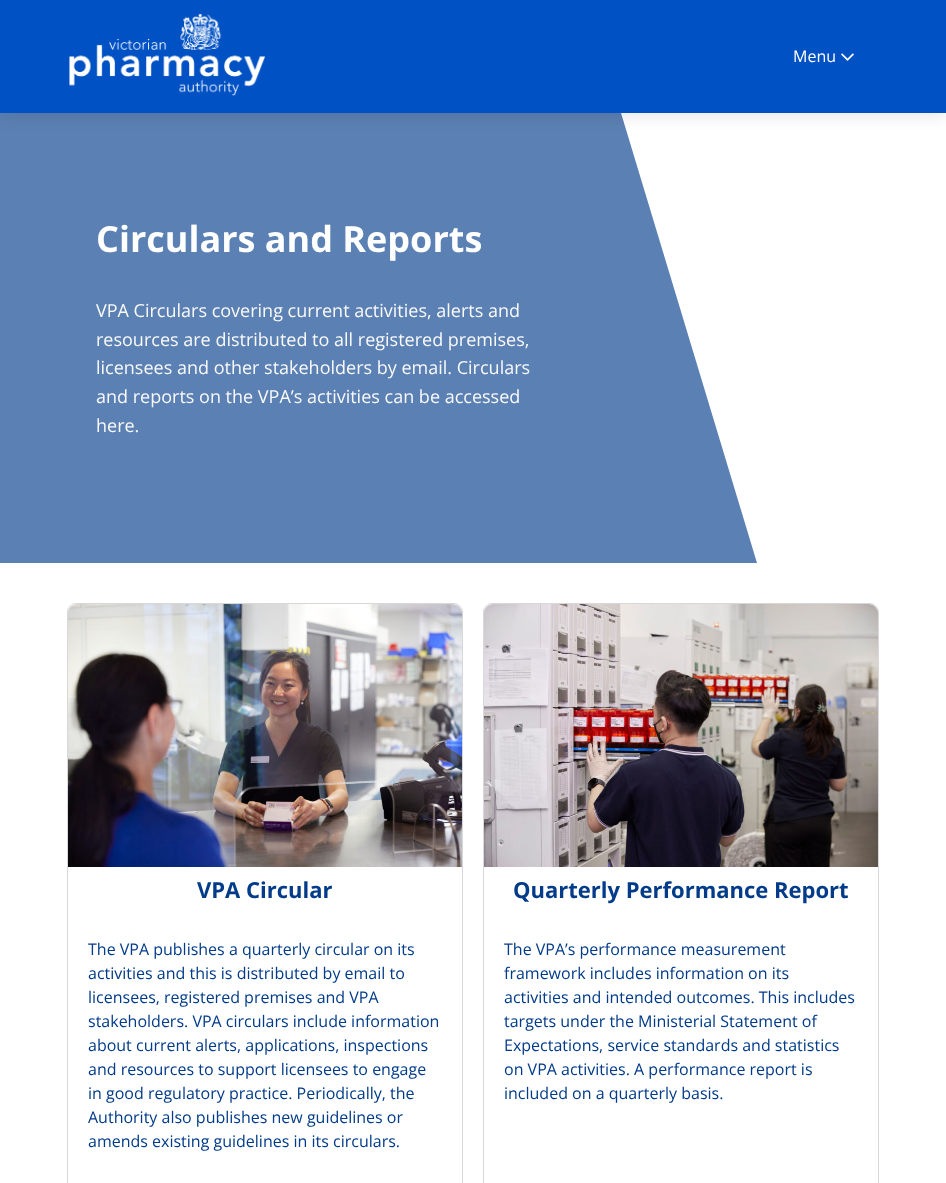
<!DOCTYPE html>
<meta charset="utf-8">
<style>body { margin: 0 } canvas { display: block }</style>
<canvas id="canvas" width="946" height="1183"></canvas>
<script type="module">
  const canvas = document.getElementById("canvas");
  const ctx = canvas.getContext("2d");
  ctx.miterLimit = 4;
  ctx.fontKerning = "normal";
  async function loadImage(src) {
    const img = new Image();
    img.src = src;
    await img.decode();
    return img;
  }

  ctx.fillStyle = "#ffffff";
  ctx.fillRect(0, 0, 946, 1183);
  ctx.fillStyle = "#5b80b3";
  ctx.beginPath();
  ctx.moveTo(0, 113);
  ctx.lineTo(0, 563);
  ctx.lineTo(757, 563);
  ctx.lineTo(621, 113);
  ctx.closePath();
  ctx.fill();
  ctx.fillStyle = "rgba(0, 0, 0, 0.08)";
  ctx.filter = "blur(7.5px)";
  ctx.beginPath();
  ctx.rect(0, 5, 946, 113);
  ctx.fill();
  ctx.filter = "none";
  ctx.fillStyle = "#0051c4";
  ctx.fillRect(0, 0, 946, 113);
  ctx.drawImage(await loadImage("img1.png"), 69, 13, 197, 83);
  ctx.font = "16px Open Sans";
  ctx.fillStyle = "#ffffff";
  ctx.fillText("Menu", 793, 62);
  ctx.drawImage(await loadImage("img2.png"), 841, 53, 13, 8);
  ctx.font = "bold 36px Open Sans";
  ctx.fillText("Circulars and Reports", 96, 252);
  ctx.font = "18px Open Sans";
  ctx.fillStyle = "#f9f9f9";
  ctx.fillText("VPA Circulars covering current activities, alerts and", 96, 317);
  ctx.fillText("resources are distributed to all registered premises,", 96, 346);
  ctx.fillText("licensees and other stakeholders by email. Circulars", 96, 374);
  ctx.fillText("and reports on the VPA’s activities can be accessed", 96, 403);
  ctx.fillText("here.", 96, 432);
  ctx.beginPath();
  ctx.moveTo(76, 603.5);
  ctx.lineTo(454, 603.5);
  ctx.bezierCurveTo(458.5, 603.5, 462.5, 607.5, 462.5, 612);
  ctx.lineTo(462.5, 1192.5);
  ctx.lineTo(67.5, 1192.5);
  ctx.lineTo(67.5, 612);
  ctx.bezierCurveTo(67.5, 607.5, 71.5, 603.5, 76, 603.5);
  ctx.closePath();
  ctx.strokeStyle = "#d8d8d8";
  ctx.stroke();
  ctx.drawImage(await loadImage("img3.png"), 68, 604, 394, 263);
  ctx.font = "bold 22px Open Sans";
  ctx.fillStyle = "#023b89";
  ctx.fillText("VPA Circular", 197, 898);
  ctx.font = "16px Open Sans";
  ctx.fillText("The VPA publishes a quarterly circular on its", 88, 955);
  ctx.fillText("activities and this is distributed by email to", 88, 979);
  ctx.fillText("licensees, registered premises and VPA", 88, 1003);
  ctx.fillText("stakeholders. VPA circulars include information", 88, 1027);
  ctx.fillText("about current alerts, applications, inspections", 88, 1051);
  ctx.fillText("and resources to support licensees to engage", 88, 1075);
  ctx.fillText("in good regulatory practice. Periodically, the", 88, 1099);
  ctx.fillText("Authority also publishes new guidelines or", 88, 1123);
  ctx.fillText("amends existing guidelines in its circulars.", 88, 1147);
  ctx.beginPath();
  ctx.moveTo(492, 603.5);
  ctx.lineTo(870, 603.5);
  ctx.bezierCurveTo(874.5, 603.5, 878.5, 607.5, 878.5, 612);
  ctx.lineTo(878.5, 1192.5);
  ctx.lineTo(483.5, 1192.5);
  ctx.lineTo(483.5, 612);
  ctx.bezierCurveTo(483.5, 607.5, 487.5, 603.5, 492, 603.5);
  ctx.closePath();
  ctx.stroke();
  ctx.drawImage(await loadImage("img4.png"), 484, 604, 394, 263);
  ctx.font = "bold 22px Open Sans";
  ctx.fillText("Quarterly Performance Report", 513, 898);
  ctx.font = "16px Open Sans";
  ctx.fillText("The VPA’s performance measurement", 504, 955);
  ctx.fillText("framework includes information on its", 504, 979);
  ctx.fillText("activities and intended outcomes. This includes", 504, 1003);
  ctx.fillText("targets under the Ministerial Statement of", 504, 1027);
  ctx.fillText("Expectations, service standards and statistics", 504, 1051);
  ctx.fillText("on VPA activities. A performance report is", 504, 1075);
  ctx.fillText("included on a quarterly basis.", 504, 1099);
</script>
